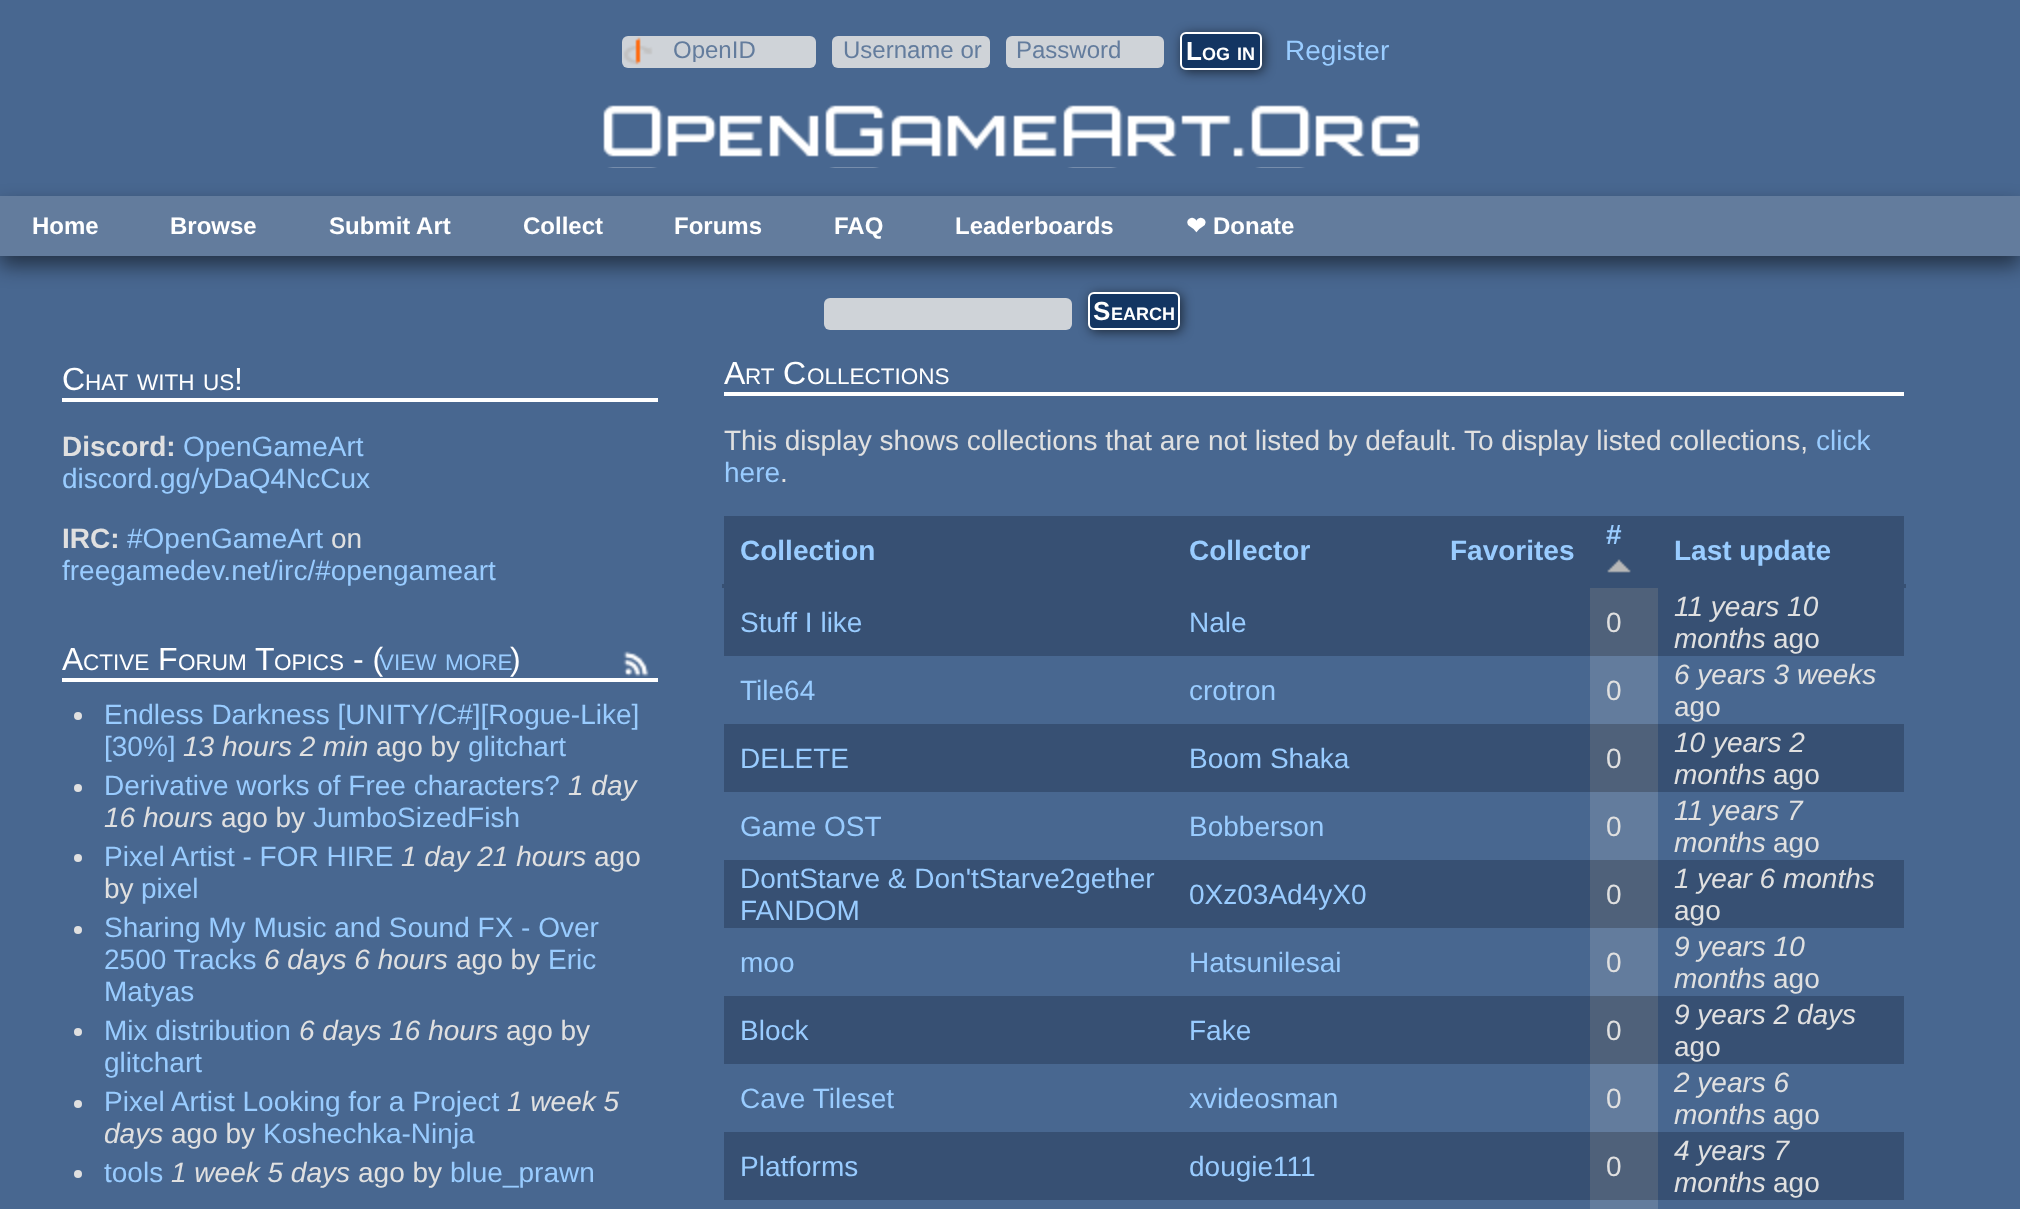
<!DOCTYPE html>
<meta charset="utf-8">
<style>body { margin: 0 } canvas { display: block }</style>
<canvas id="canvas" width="2020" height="1209"></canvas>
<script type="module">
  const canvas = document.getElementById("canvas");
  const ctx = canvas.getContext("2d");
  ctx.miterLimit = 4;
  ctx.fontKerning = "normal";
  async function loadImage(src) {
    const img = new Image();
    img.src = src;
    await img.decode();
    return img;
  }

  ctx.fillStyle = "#486790";
  ctx.fillRect(0, 0, 2020, 1209);
  ctx.fillStyle = "#cfd3d8";
  ctx.beginPath();
  ctx.roundRect(622, 36, 194, 32, 6);
  ctx.fill();
  ctx.drawImage(await loadImage("img1.png"), 623, 37, 30, 28);
  ctx.save();
  ctx.beginPath();
  ctx.rect(632, 36, 124, 26);
  ctx.clip();
  ctx.font = "24px Liberation Sans";
  ctx.fillStyle = "#637c9d";
  ctx.fillText("OpenID", 673, 58);
  ctx.restore();
  ctx.beginPath();
  ctx.roundRect(832, 36, 158, 32, 6);
  ctx.fill();
  ctx.font = "24px Liberation Sans";
  ctx.fillStyle = "#637c9d";
  ctx.fillText("Username or", 843, 58);
  ctx.fillStyle = "rgba(0, 0, 0, 0.6)";
  ctx.filter = "blur(6px)";
  ctx.beginPath();
  ctx.roundRect(1182, 34, 82, 38, 6);
  ctx.fill();
  ctx.filter = "none";
  ctx.fillStyle = "#cfd3d8";
  ctx.beginPath();
  ctx.roundRect(1006, 36, 158, 32, 6);
  ctx.fill();
  ctx.fillStyle = "#637c9d";
  ctx.fillText("Password", 1016, 58);
  ctx.fillStyle = "#133562";
  ctx.beginPath();
  ctx.roundRect(1181, 33, 80, 36, 5);
  ctx.fill();
  ctx.strokeStyle = "#ffffff";
  ctx.lineWidth = 2;
  ctx.stroke();
  ctx.font = "bold 26px Liberation Sans";
  ctx.fillStyle = "#ffffff";
  ctx.fillText("L", 1186, 60);
  ctx.font = "bold 18px Liberation Sans";
  ctx.fillText("OG", 1202, 60);
  ctx.fillText("IN", 1237, 60);
  ctx.font = "28px Liberation Sans";
  ctx.fillStyle = "#99ccff";
  ctx.fillText("Register", 1285, 60);
  ctx.drawImage(await loadImage("img2.png"), 603, 105, 817, 63);
  ctx.fillStyle = "rgba(0, 0, 0, 0.5)";
  ctx.filter = "blur(10px)";
  ctx.beginPath();
  ctx.rect(0, 206, 2020, 60);
  ctx.fill();
  ctx.filter = "none";
  ctx.fillStyle = "#637c9d";
  ctx.fillRect(0, 196, 2020, 60);
  ctx.font = "bold 24px Liberation Sans";
  ctx.fillStyle = "#ffffff";
  ctx.fillText("Home", 32, 234);
  ctx.fillText("Browse", 170, 234);
  ctx.fillText("Submit Art", 329, 234);
  ctx.fillText("Collect", 523, 234);
  ctx.fillText("Forums", 674, 234);
  ctx.fillText("FAQ", 834, 234);
  ctx.fillText("Leaderboards", 955, 234);
  ctx.font = "bold 24px DejaVu Sans";
  ctx.fillText("❤", 1186, 234);
  ctx.font = "bold 24px Liberation Sans";
  ctx.fillText("Donate", 1213, 234);
  ctx.fillStyle = "#cfd3d8";
  ctx.beginPath();
  ctx.roundRect(824, 298, 248, 32, 6);
  ctx.fill();
  ctx.fillStyle = "rgba(0, 0, 0, 0.6)";
  ctx.filter = "blur(6px)";
  ctx.beginPath();
  ctx.roundRect(1090, 294, 92, 38, 6);
  ctx.fill();
  ctx.filter = "none";
  ctx.fillStyle = "#133562";
  ctx.beginPath();
  ctx.roundRect(1089, 293, 90, 36, 5);
  ctx.fill();
  ctx.stroke();
  ctx.font = "bold 26px Liberation Sans";
  ctx.fillStyle = "#ffffff";
  ctx.fillText("S", 1093, 320);
  ctx.font = "bold 18px Liberation Sans";
  ctx.fillText("EARCH", 1111, 320);
  ctx.fillRect(62, 398, 596, 4);
  ctx.font = "32px Liberation Sans";
  ctx.fillText("C", 62, 390);
  ctx.font = "22.5px Liberation Sans";
  ctx.fillText("HAT", 85, 390);
  ctx.fillText("WITH", 137, 390);
  ctx.fillText("US", 203, 390);
  ctx.font = "32px Liberation Sans";
  ctx.fillText("!", 234, 390);
  ctx.font = "bold 28px Liberation Sans";
  ctx.fillStyle = "#e0e0e0";
  ctx.fillText("Discord:", 62, 456);
  ctx.font = "28px Liberation Sans";
  ctx.fillStyle = "#99ccff";
  ctx.fillText("OpenGameArt", 183, 456);
  ctx.fillText("discord.gg/yDaQ4NcCux", 62, 488);
  ctx.font = "bold 28px Liberation Sans";
  ctx.fillStyle = "#e0e0e0";
  ctx.fillText("IRC:", 62, 548);
  ctx.font = "28px Liberation Sans";
  ctx.fillStyle = "#99ccff";
  ctx.fillText("#OpenGameArt", 127, 548);
  ctx.fillStyle = "#e0e0e0";
  ctx.fillText("on", 331, 548);
  ctx.fillStyle = "#99ccff";
  ctx.fillText("freegamedev.net/irc/#opengameart", 62, 580);
  ctx.fillStyle = "#ffffff";
  ctx.fillRect(62, 678, 596, 4);
  ctx.font = "32px Liberation Sans";
  ctx.fillText("A", 62, 670);
  ctx.font = "22.5px Liberation Sans";
  ctx.fillText("CTIVE", 83, 670);
  ctx.font = "32px Liberation Sans";
  ctx.fillText("F", 158, 670);
  ctx.font = "22.5px Liberation Sans";
  ctx.fillText("ORUM", 178, 670);
  ctx.font = "32px Liberation Sans";
  ctx.fillText("T", 255, 670);
  ctx.font = "22.5px Liberation Sans";
  ctx.fillText("OPICS", 274, 670);
  ctx.font = "32px Liberation Sans";
  ctx.fillText("- (", 353, 670);
  ctx.font = "22.5px Liberation Sans";
  ctx.fillStyle = "#99ccff";
  ctx.fillText("VIEW", 379, 670);
  ctx.fillText("MORE", 445, 670);
  ctx.font = "32px Liberation Sans";
  ctx.fillStyle = "#ffffff";
  ctx.fillText(")", 510, 670);
  ctx.drawImage(await loadImage("img3.png"), 623, 651, 26, 26);
  ctx.fillStyle = "#e0e0e0";
  ctx.beginPath();
  ctx.arc(78, 716, 4, 0, Math.PI * 2);
  ctx.fill();
  ctx.font = "28px Liberation Sans";
  ctx.fillStyle = "#99ccff";
  ctx.fillText("Endless Darkness [UNITY/C#][Rogue-Like]", 104, 724);
  ctx.fillText("[30%]", 104, 756);
  ctx.font = "italic 28px Liberation Sans";
  ctx.fillStyle = "#e0e0e0";
  ctx.fillText("13 hours 2 min", 183, 756);
  ctx.font = "28px Liberation Sans";
  ctx.fillText("ago by", 376, 756);
  ctx.fillStyle = "#99ccff";
  ctx.fillText("glitchart", 468, 756);
  ctx.fillStyle = "#e0e0e0";
  ctx.beginPath();
  ctx.arc(78, 788, 4, 0, Math.PI * 2);
  ctx.fill();
  ctx.fillStyle = "#99ccff";
  ctx.fillText("Derivative works of Free characters?", 104, 795);
  ctx.font = "italic 28px Liberation Sans";
  ctx.fillStyle = "#e0e0e0";
  ctx.fillText("1 day", 568, 795);
  ctx.fillText("16 hours", 104, 827);
  ctx.font = "28px Liberation Sans";
  ctx.fillText("ago by", 221, 827);
  ctx.fillStyle = "#99ccff";
  ctx.fillText("JumboSizedFish", 313, 827);
  ctx.fillStyle = "#e0e0e0";
  ctx.beginPath();
  ctx.arc(78, 858, 4, 0, Math.PI * 2);
  ctx.fill();
  ctx.fillStyle = "#99ccff";
  ctx.fillText("Pixel Artist - FOR HIRE", 104, 866);
  ctx.font = "italic 28px Liberation Sans";
  ctx.fillStyle = "#e0e0e0";
  ctx.fillText("1 day 21 hours", 401, 866);
  ctx.font = "28px Liberation Sans";
  ctx.fillText("ago", 594, 866);
  ctx.fillText("by", 104, 898);
  ctx.fillStyle = "#99ccff";
  ctx.fillText("pixel", 141, 898);
  ctx.fillStyle = "#e0e0e0";
  ctx.beginPath();
  ctx.arc(78, 930, 4, 0, Math.PI * 2);
  ctx.fill();
  ctx.fillStyle = "#99ccff";
  ctx.fillText("Sharing My Music and Sound FX - Over", 104, 937);
  ctx.fillText("2500 Tracks", 104, 969);
  ctx.font = "italic 28px Liberation Sans";
  ctx.fillStyle = "#e0e0e0";
  ctx.fillText("6 days 6 hours", 264, 969);
  ctx.font = "28px Liberation Sans";
  ctx.fillText("ago by", 456, 969);
  ctx.fillStyle = "#99ccff";
  ctx.fillText("Eric", 548, 969);
  ctx.fillText("Matyas", 104, 1001);
  ctx.fillStyle = "#e0e0e0";
  ctx.beginPath();
  ctx.arc(78, 1032, 4, 0, Math.PI * 2);
  ctx.fill();
  ctx.fillStyle = "#99ccff";
  ctx.fillText("Mix distribution", 104, 1040);
  ctx.font = "italic 28px Liberation Sans";
  ctx.fillStyle = "#e0e0e0";
  ctx.fillText("6 days 16 hours", 299, 1040);
  ctx.font = "28px Liberation Sans";
  ctx.fillText("ago by", 506, 1040);
  ctx.fillStyle = "#99ccff";
  ctx.fillText("glitchart", 104, 1072);
  ctx.fillStyle = "#e0e0e0";
  ctx.beginPath();
  ctx.arc(78, 1104, 4, 0, Math.PI * 2);
  ctx.fill();
  ctx.fillStyle = "#99ccff";
  ctx.fillText("Pixel Artist Looking for a Project", 104, 1111);
  ctx.font = "italic 28px Liberation Sans";
  ctx.fillStyle = "#e0e0e0";
  ctx.fillText("1 week 5", 507, 1111);
  ctx.fillText("days", 104, 1143);
  ctx.font = "28px Liberation Sans";
  ctx.fillText("ago by", 171, 1143);
  ctx.fillStyle = "#99ccff";
  ctx.fillText("Koshechka-Ninja", 263, 1143);
  ctx.fillStyle = "#e0e0e0";
  ctx.beginPath();
  ctx.arc(78, 1174, 4, 0, Math.PI * 2);
  ctx.fill();
  ctx.fillStyle = "#99ccff";
  ctx.fillText("tools", 104, 1182);
  ctx.font = "italic 28px Liberation Sans";
  ctx.fillStyle = "#e0e0e0";
  ctx.fillText("1 week 5 days", 171, 1182);
  ctx.font = "28px Liberation Sans";
  ctx.fillText("ago by", 358, 1182);
  ctx.fillStyle = "#99ccff";
  ctx.fillText("blue_prawn", 450, 1182);
  ctx.fillStyle = "#ffffff";
  ctx.fillRect(724, 392, 1180, 4);
  ctx.font = "32px Liberation Sans";
  ctx.fillText("A", 724, 384);
  ctx.font = "22.5px Liberation Sans";
  ctx.fillText("RT", 745, 384);
  ctx.font = "32px Liberation Sans";
  ctx.fillText("C", 783, 384);
  ctx.font = "22.5px Liberation Sans";
  ctx.fillText("OLLECTIONS", 807, 384);
  ctx.font = "28px Liberation Sans";
  ctx.fillStyle = "#e0e0e0";
  ctx.fillText("This display shows collections that are not listed by default.", 724, 450);
  ctx.fillText("To display listed collections,", 1464, 450);
  ctx.fillStyle = "#99ccff";
  ctx.fillText("click", 1816, 450);
  ctx.fillText("here", 724, 482);
  ctx.fillStyle = "#e0e0e0";
  ctx.fillText(".", 780, 482);
  ctx.fillStyle = "#375073";
  ctx.fillRect(724, 516, 1180, 70);
  ctx.font = "bold 28px Liberation Sans";
  ctx.fillStyle = "#99ccff";
  ctx.fillText("#", 1606, 544);
  ctx.drawImage(await loadImage("img4.png"), 1607, 559, 24, 14);
  ctx.fillStyle = "#375073";
  ctx.fillRect(722, 584, 454, 4);
  ctx.fillStyle = "#99ccff";
  ctx.fillText("Collection", 740, 560);
  ctx.fillText("Collector", 1189, 560);
  ctx.fillText("Favorites", 1450, 560);
  ctx.fillStyle = "#375073";
  ctx.fillRect(1656, 584, 250, 4);
  ctx.fillStyle = "#99ccff";
  ctx.fillText("Last update", 1674, 560);
  ctx.fillStyle = "#375073";
  ctx.fillRect(1176, 586, 480, 2);
  ctx.fillRect(724, 588, 1180, 68);
  ctx.font = "28px Liberation Sans";
  ctx.fillStyle = "#99ccff";
  ctx.fillText("Stuff I like", 740, 632);
  ctx.fillText("Nale", 1189, 632);
  ctx.fillStyle = "#4f617a";
  ctx.fillRect(1590, 588, 68, 68);
  ctx.fillStyle = "#e0e0e0";
  ctx.fillText("0", 1606, 632);
  ctx.font = "italic 28px Liberation Sans";
  ctx.fillText("11 years 10", 1674, 616);
  ctx.fillText("months", 1674, 648);
  ctx.font = "28px Liberation Sans";
  ctx.fillText("ago", 1773, 648);
  ctx.fillStyle = "#99ccff";
  ctx.fillText("Tile64", 740, 700);
  ctx.fillText("crotron", 1189, 700);
  ctx.fillStyle = "#637c9d";
  ctx.fillRect(1590, 656, 68, 68);
  ctx.fillStyle = "#e0e0e0";
  ctx.fillText("0", 1606, 700);
  ctx.font = "italic 28px Liberation Sans";
  ctx.fillText("6 years 3 weeks", 1674, 684);
  ctx.font = "28px Liberation Sans";
  ctx.fillText("ago", 1674, 716);
  ctx.fillStyle = "#375073";
  ctx.fillRect(724, 724, 1180, 68);
  ctx.fillStyle = "#99ccff";
  ctx.fillText("DELETE", 740, 768);
  ctx.fillText("Boom Shaka", 1189, 768);
  ctx.fillStyle = "#4f617a";
  ctx.fillRect(1590, 724, 68, 68);
  ctx.fillStyle = "#e0e0e0";
  ctx.fillText("0", 1606, 768);
  ctx.font = "italic 28px Liberation Sans";
  ctx.fillText("10 years 2", 1674, 752);
  ctx.fillText("months", 1674, 784);
  ctx.font = "28px Liberation Sans";
  ctx.fillText("ago", 1773, 784);
  ctx.fillStyle = "#99ccff";
  ctx.fillText("Game OST", 740, 836);
  ctx.fillText("Bobberson", 1189, 836);
  ctx.fillStyle = "#637c9d";
  ctx.fillRect(1590, 792, 68, 68);
  ctx.fillStyle = "#e0e0e0";
  ctx.fillText("0", 1606, 836);
  ctx.font = "italic 28px Liberation Sans";
  ctx.fillText("11 years 7", 1674, 820);
  ctx.fillText("months", 1674, 852);
  ctx.font = "28px Liberation Sans";
  ctx.fillText("ago", 1773, 852);
  ctx.fillStyle = "#375073";
  ctx.fillRect(724, 860, 1180, 68);
  ctx.fillStyle = "#99ccff";
  ctx.fillText("DontStarve & Don'tStarve2gether", 740, 888);
  ctx.fillText("FANDOM", 740, 920);
  ctx.fillText("0Xz03Ad4yX0", 1189, 904);
  ctx.fillStyle = "#4f617a";
  ctx.fillRect(1590, 860, 68, 68);
  ctx.fillStyle = "#e0e0e0";
  ctx.fillText("0", 1606, 904);
  ctx.font = "italic 28px Liberation Sans";
  ctx.fillText("1 year 6 months", 1674, 888);
  ctx.font = "28px Liberation Sans";
  ctx.fillText("ago", 1674, 920);
  ctx.fillStyle = "#99ccff";
  ctx.fillText("moo", 740, 972);
  ctx.fillText("Hatsunilesai", 1189, 972);
  ctx.fillStyle = "#637c9d";
  ctx.fillRect(1590, 928, 68, 68);
  ctx.fillStyle = "#e0e0e0";
  ctx.fillText("0", 1606, 972);
  ctx.font = "italic 28px Liberation Sans";
  ctx.fillText("9 years 10", 1674, 956);
  ctx.fillText("months", 1674, 988);
  ctx.font = "28px Liberation Sans";
  ctx.fillText("ago", 1773, 988);
  ctx.fillStyle = "#375073";
  ctx.fillRect(724, 996, 1180, 68);
  ctx.fillStyle = "#99ccff";
  ctx.fillText("Block", 740, 1040);
  ctx.fillText("Fake", 1189, 1040);
  ctx.fillStyle = "#4f617a";
  ctx.fillRect(1590, 996, 68, 68);
  ctx.fillStyle = "#e0e0e0";
  ctx.fillText("0", 1606, 1040);
  ctx.font = "italic 28px Liberation Sans";
  ctx.fillText("9 years 2 days", 1674, 1024);
  ctx.font = "28px Liberation Sans";
  ctx.fillText("ago", 1674, 1056);
  ctx.fillStyle = "#99ccff";
  ctx.fillText("Cave Tileset", 740, 1108);
  ctx.fillText("xvideosman", 1189, 1108);
  ctx.fillStyle = "#637c9d";
  ctx.fillRect(1590, 1064, 68, 68);
  ctx.fillStyle = "#e0e0e0";
  ctx.fillText("0", 1606, 1108);
  ctx.font = "italic 28px Liberation Sans";
  ctx.fillText("2 years 6", 1674, 1092);
  ctx.fillText("months", 1674, 1124);
  ctx.font = "28px Liberation Sans";
  ctx.fillText("ago", 1773, 1124);
  ctx.fillStyle = "#375073";
  ctx.fillRect(724, 1132, 1180, 68);
  ctx.fillStyle = "#99ccff";
  ctx.fillText("Platforms", 740, 1176);
  ctx.fillText("dougie111", 1189, 1176);
  ctx.fillStyle = "#4f617a";
  ctx.fillRect(1590, 1132, 68, 68);
  ctx.fillStyle = "#e0e0e0";
  ctx.fillText("0", 1606, 1176);
  ctx.font = "italic 28px Liberation Sans";
  ctx.fillText("4 years 7", 1674, 1160);
  ctx.fillText("months", 1674, 1192);
  ctx.font = "28px Liberation Sans";
  ctx.fillText("ago", 1773, 1192);
  ctx.fillStyle = "#637c9d";
  ctx.fillRect(1590, 1200, 68, 9);
</script>
